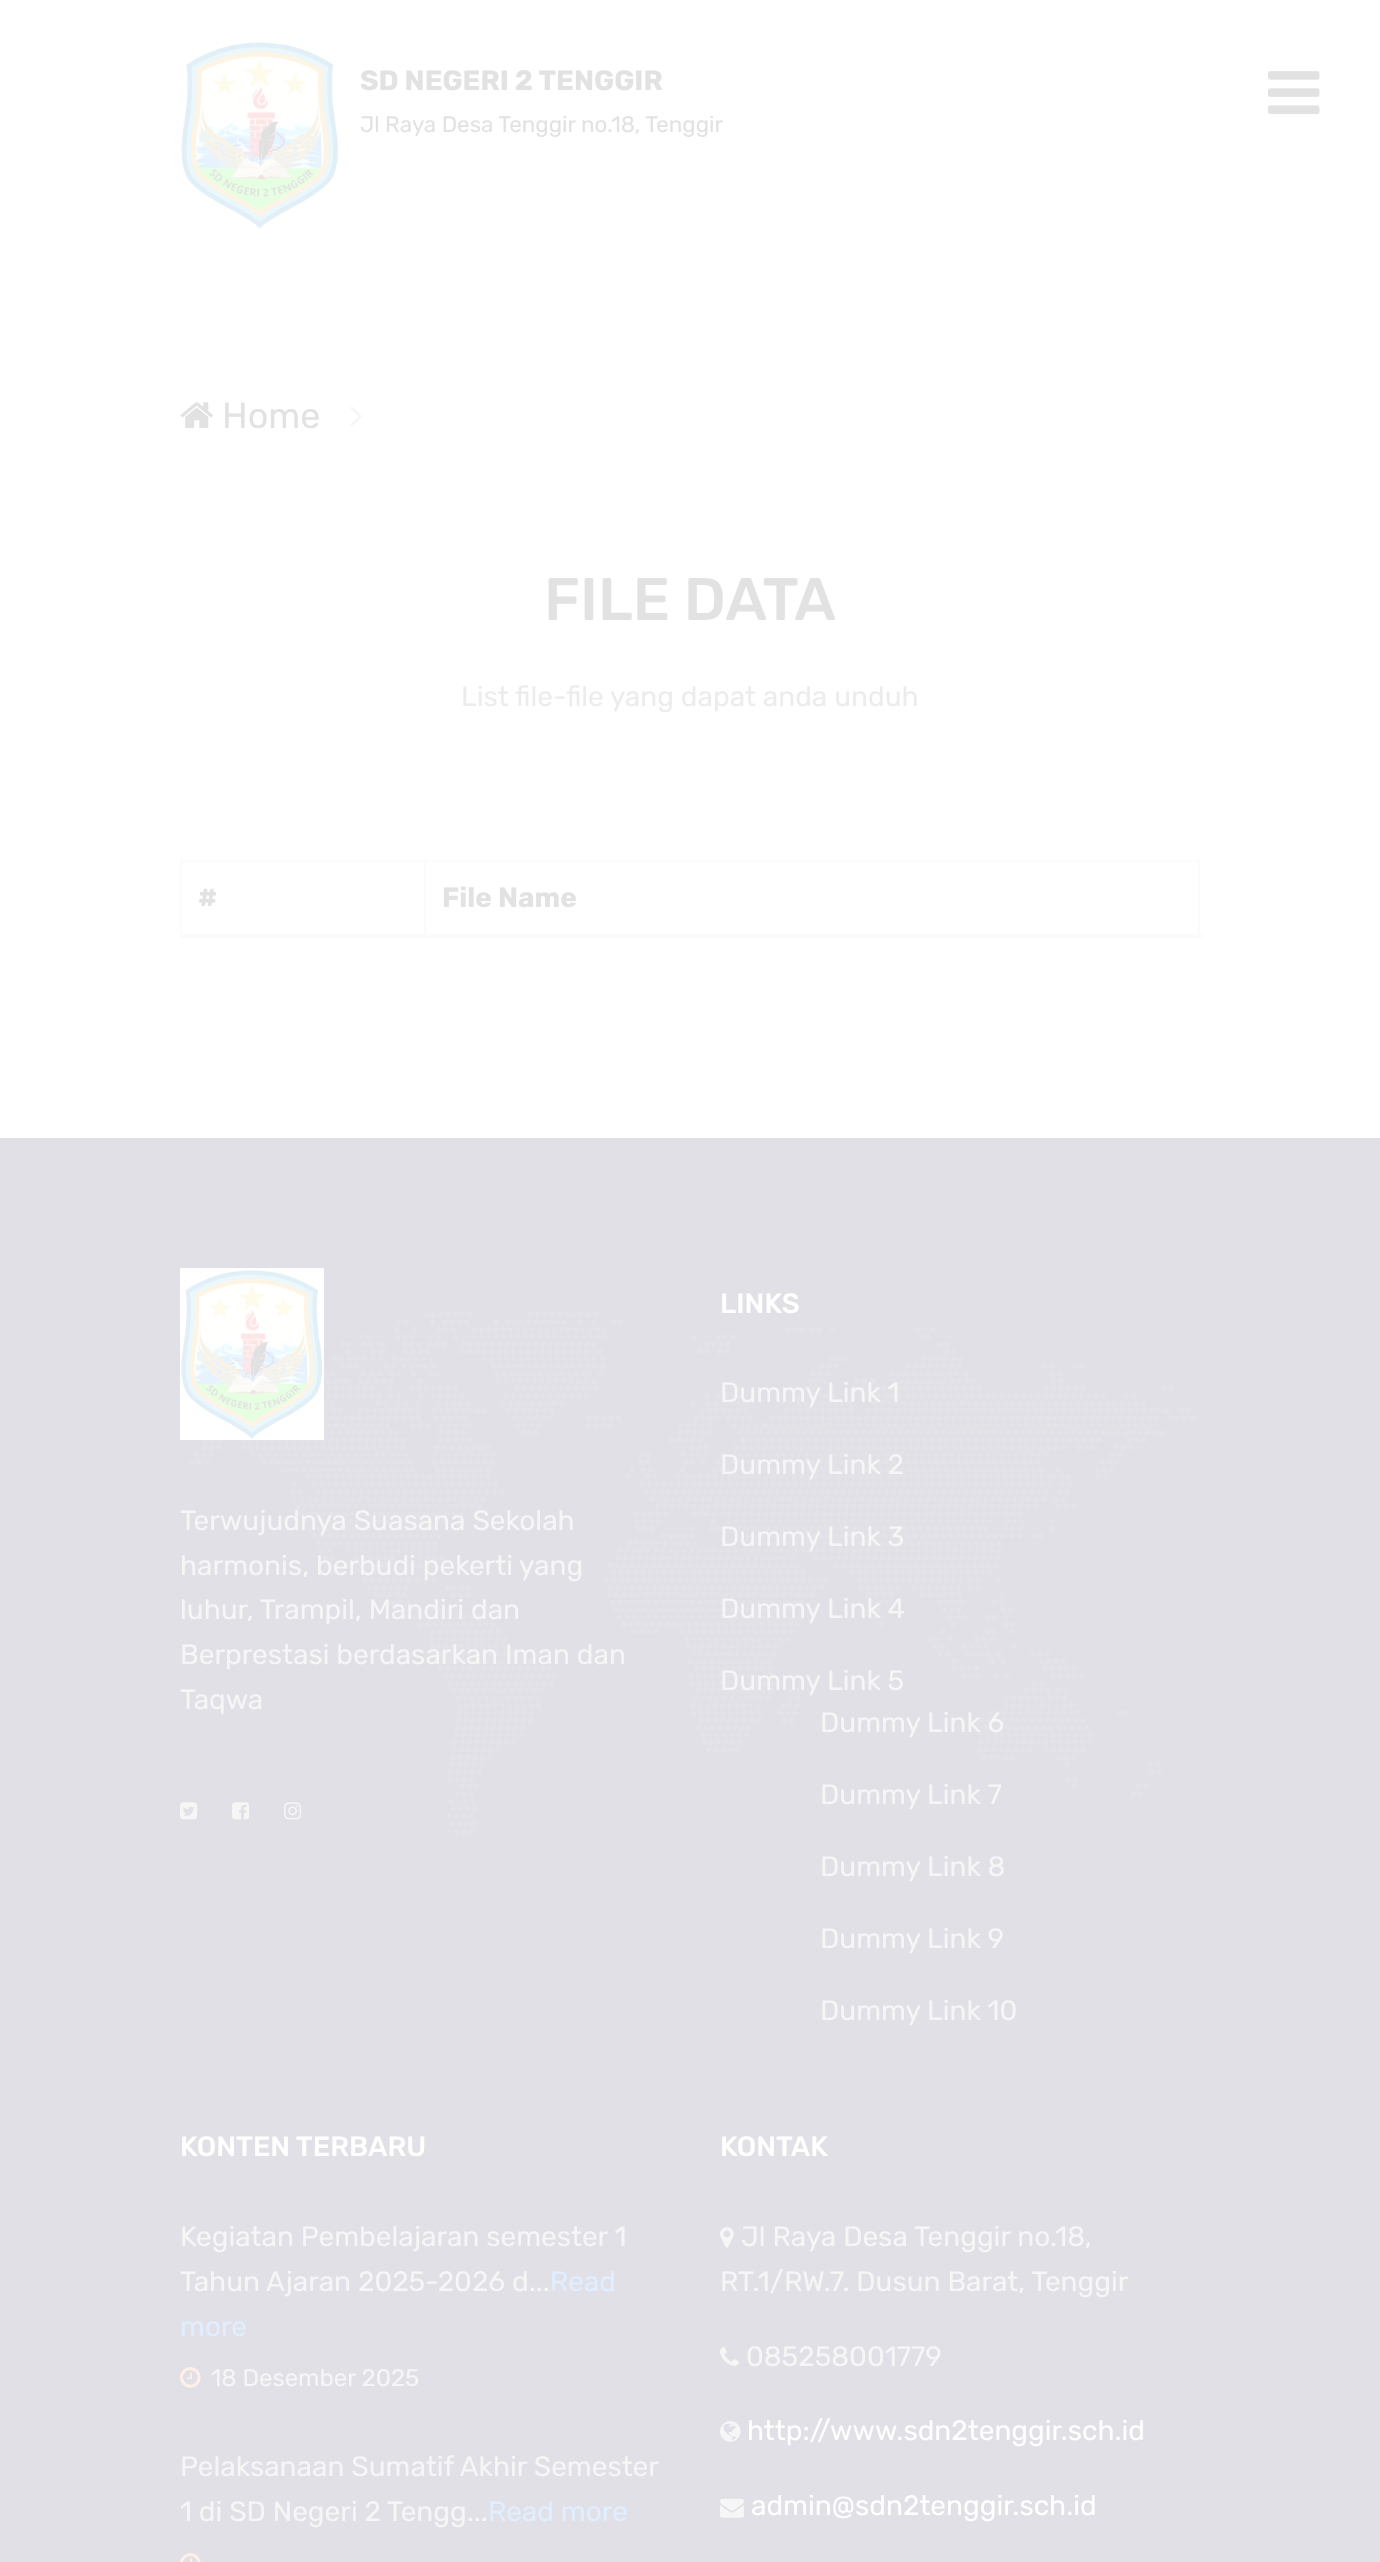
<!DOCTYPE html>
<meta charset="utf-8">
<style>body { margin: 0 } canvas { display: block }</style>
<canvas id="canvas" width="1380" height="2562"></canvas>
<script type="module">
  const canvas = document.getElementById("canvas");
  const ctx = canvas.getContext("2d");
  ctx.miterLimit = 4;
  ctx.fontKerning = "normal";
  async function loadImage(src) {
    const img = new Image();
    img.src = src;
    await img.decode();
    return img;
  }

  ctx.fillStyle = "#ffffff";
  ctx.fillRect(0, 0, 1380, 2562);
  ctx.drawImage(await loadImage("img1.png"), 181, 42, 158, 188);
  ctx.font = "bold 28px Rubik";
  ctx.fillStyle = "#e2e2e2";
  ctx.fillText("SD NEGERI 2 TENGGIR", 360, 90);
  ctx.font = "22.4px Rubik";
  ctx.fillText("Jl Raya Desa Tenggir no.18, Tenggir", 360, 132);
  ctx.drawImage(await loadImage("img2.png"), 1268, 71, 52, 43);
  ctx.drawImage(await loadImage("img3.png"), 180, 402, 33, 26);
  ctx.font = "36px Rubik";
  ctx.fillText("Home", 222, 428);
  ctx.drawImage(await loadImage("img4.png"), 350, 406, 12, 21);
  ctx.font = "500 60px Rubik";
  ctx.fillText("FILE DATA", 544, 620);
  ctx.font = "28px Rubik";
  ctx.fillStyle = "#ececec";
  ctx.fillText("List file-file yang dapat anda unduh", 461, 706);
  ctx.fillStyle = "#fbfcfc";
  ctx.fillRect(180, 860, 1020, 2);
  ctx.fillStyle = "#fbfbfb";
  ctx.fillRect(180, 860, 2, 78);
  ctx.font = "bold 28px Rubik";
  ctx.fillStyle = "#e2e2e2";
  ctx.fillText("#", 198, 907);
  ctx.fillStyle = "#fbfbfb";
  ctx.fillRect(1198, 860, 2, 78);
  ctx.fillRect(424, 860, 2, 78);
  ctx.fillRect(180, 934, 1022, 4);
  ctx.fillStyle = "#e2e2e2";
  ctx.fillText("File Name", 442, 907);
  ctx.fillStyle = "#e1e0e6";
  ctx.fillRect(0, 1138, 1380, 1424);
  ctx.drawImage(await loadImage("img5.png"), 188, 1309, 1009, 527);
  ctx.drawImage(await loadImage("img6.png"), 180, 1268, 144, 172);
  ctx.font = "28px Rubik";
  ctx.fillStyle = "#f6f6f6";
  ctx.fillText("Terwujudnya Suasana Sekolah", 180, 1530);
  ctx.fillText("harmonis, berbudi pekerti yang", 180, 1575);
  ctx.fillText("luhur, Trampil, Mandiri dan", 180, 1619);
  ctx.fillText("Berprestasi berdasarkan Iman dan", 180, 1664);
  ctx.fillText("Taqwa", 180, 1709);
  ctx.drawImage(await loadImage("img7.png"), 180, 1802, 18, 18);
  ctx.drawImage(await loadImage("img8.png"), 232, 1802, 18, 18);
  ctx.drawImage(await loadImage("img9.png"), 284, 1802, 18, 18);
  ctx.font = "500 28px Rubik";
  ctx.fillStyle = "#ffffff";
  ctx.fillText("LINKS", 720, 1313);
  ctx.font = "28px Rubik";
  ctx.fillStyle = "#f6f6f6";
  ctx.fillText("Dummy Link 1", 720, 1402);
  ctx.fillText("Dummy Link 2", 720, 1474);
  ctx.fillText("Dummy Link 3", 720, 1546);
  ctx.fillText("Dummy Link 4", 720, 1618);
  ctx.fillText("Dummy Link 5", 720, 1690);
  ctx.fillText("Dummy Link 6", 820, 1732);
  ctx.fillText("Dummy Link 7", 820, 1804);
  ctx.fillText("Dummy Link 8", 820, 1876);
  ctx.fillText("Dummy Link 9", 820, 1948);
  ctx.fillText("Dummy Link 10", 820, 2020);
  ctx.font = "500 28px Rubik";
  ctx.fillStyle = "#ffffff";
  ctx.fillText("KONTEN TERBARU", 180, 2156);
  ctx.font = "28px Rubik";
  ctx.fillStyle = "#f6f6f6";
  ctx.fillText("Kegiatan Pembelajaran semester 1", 180, 2246);
  ctx.fillText("Tahun Ajaran 2025-2026 d...", 180, 2291);
  ctx.fillStyle = "#e0efff";
  ctx.fillText("Read", 550, 2291);
  ctx.fillText("more", 180, 2336);
  ctx.drawImage(await loadImage("img10.png"), 180, 2367, 21, 21);
  ctx.font = "24px Rubik";
  ctx.fillStyle = "#f6f6f6";
  ctx.fillText("18 Desember 2025", 211, 2386);
  ctx.font = "28px Rubik";
  ctx.fillText("Pelaksanaan Sumatif Akhir Semester", 180, 2476);
  ctx.fillText("1 di SD Negeri 2 Tengg...", 180, 2521);
  ctx.fillStyle = "#e0efff";
  ctx.fillText("Read more", 488, 2521);
  ctx.drawImage(await loadImage("img11.png"), 180, 2553, 21, 9);
  ctx.font = "500 28px Rubik";
  ctx.fillStyle = "#ffffff";
  ctx.fillText("KONTAK", 720, 2156);
  ctx.drawImage(await loadImage("img12.png"), 720, 2227, 14, 21);
  ctx.font = "28px Rubik";
  ctx.fillStyle = "#f6f6f6";
  ctx.fillText("Jl Raya Desa Tenggir no.18,", 741, 2246);
  ctx.fillText("RT.1/RW.7. Dusun Barat, Tenggir", 720, 2291);
  ctx.drawImage(await loadImage("img13.png"), 720, 2347, 19, 19);
  ctx.fillText("085258001779", 746, 2366);
  ctx.drawImage(await loadImage("img14.png"), 720, 2421, 21, 21);
  ctx.fillStyle = "#ffffff";
  ctx.fillText("http://www.sdn2tenggir.sch.id", 747, 2440);
  ctx.drawImage(await loadImage("img15.png"), 720, 2498, 24, 20);
  ctx.fillText("admin@sdn2tenggir.sch.id", 751, 2515);
</script>
